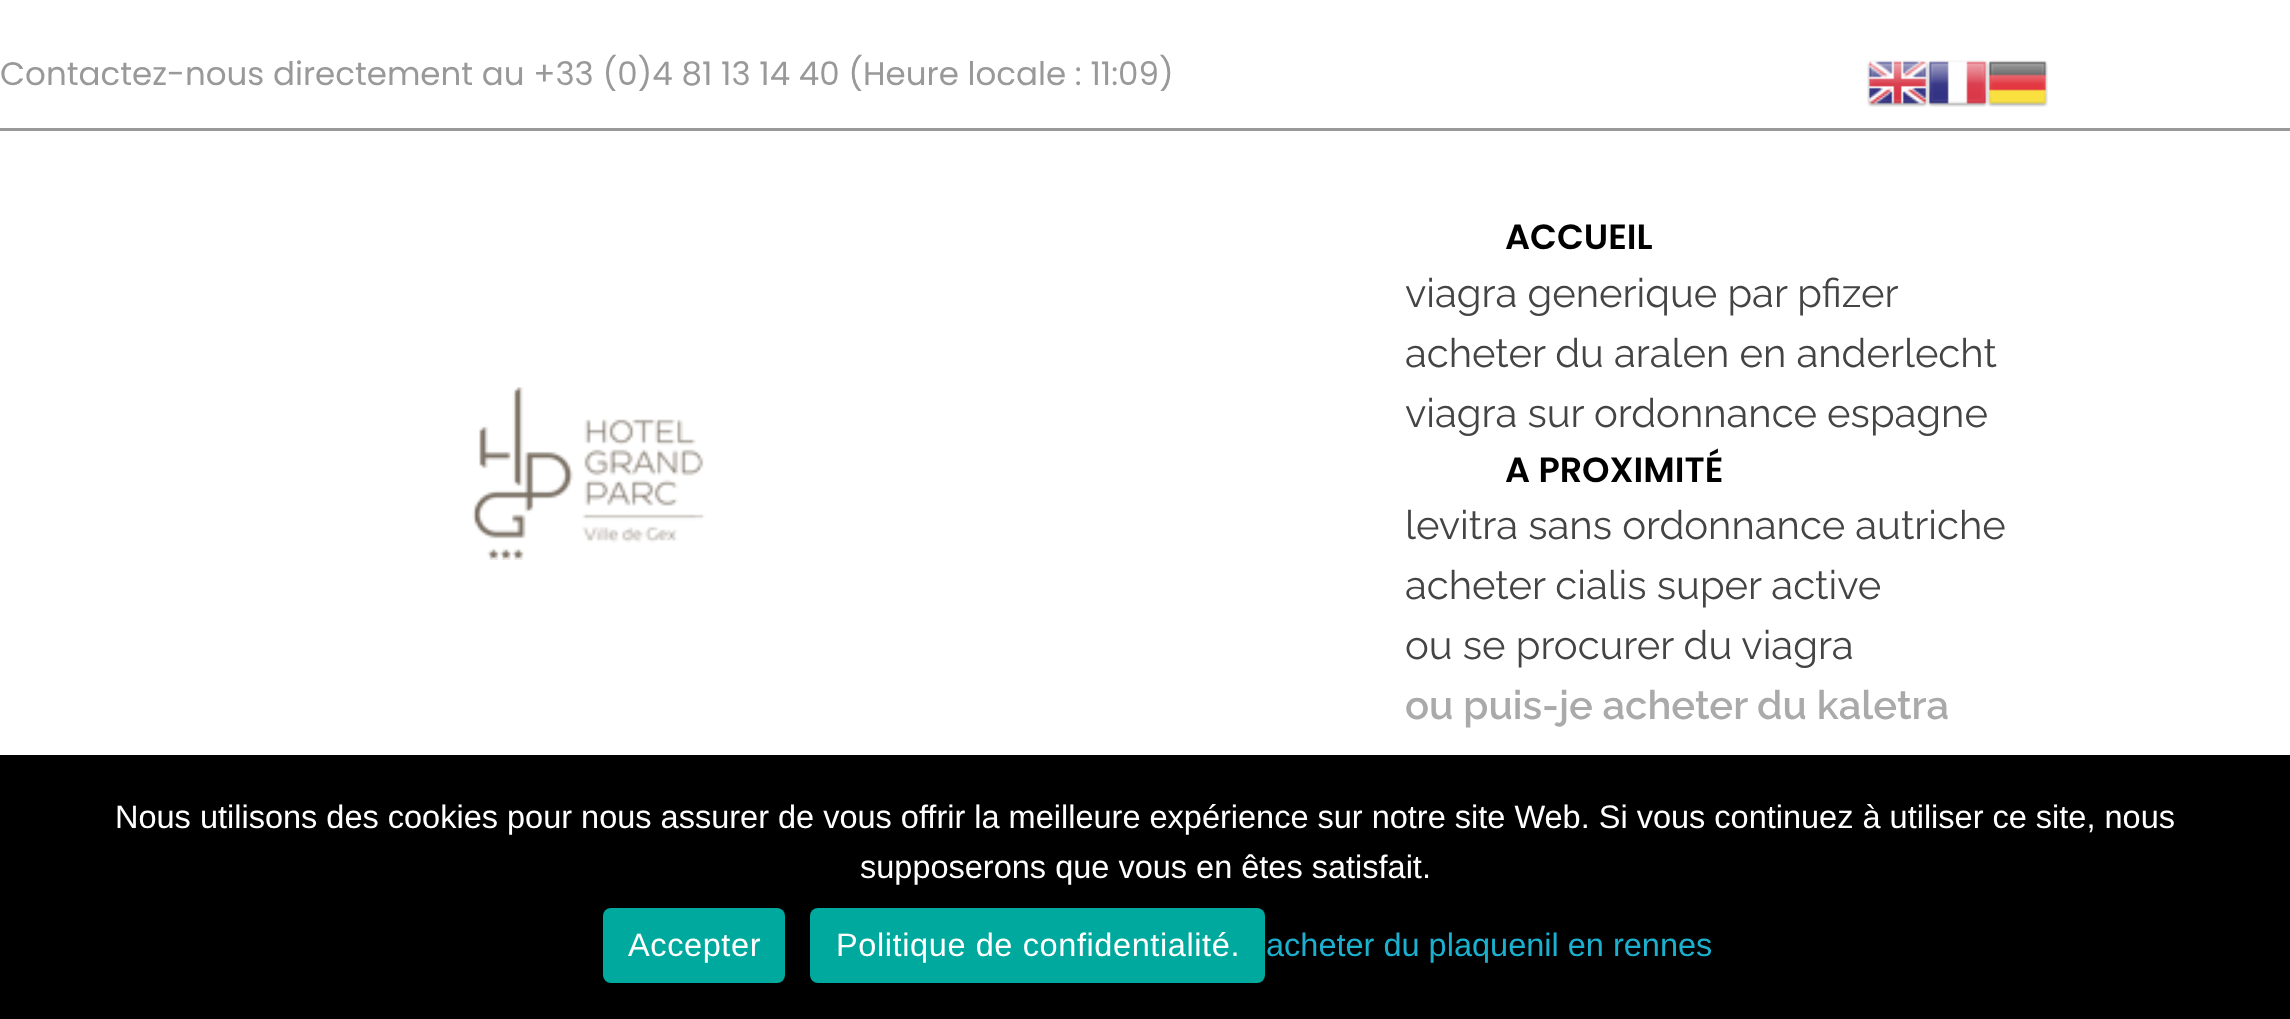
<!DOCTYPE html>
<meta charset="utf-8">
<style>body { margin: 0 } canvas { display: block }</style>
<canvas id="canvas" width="2290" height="1019"></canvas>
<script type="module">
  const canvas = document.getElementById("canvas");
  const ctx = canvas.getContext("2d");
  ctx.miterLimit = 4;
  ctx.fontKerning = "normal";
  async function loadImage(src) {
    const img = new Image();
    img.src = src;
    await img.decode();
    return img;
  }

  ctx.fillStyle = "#ffffff";
  ctx.fillRect(0, 0, 2290, 1019);
  ctx.fillStyle = "#999999";
  ctx.fillRect(0, 128, 2290, 3);
  ctx.font = "32.5px Poppins";
  ctx.fillText("Contactez-nous directement au +33 (0)4 81 13 14 40 (Heure locale : 11:09)", 0, 85);
  ctx.drawImage(await loadImage("img1.png"), 1867, 60, 61, 47);
  ctx.drawImage(await loadImage("img2.png"), 1927, 60, 61, 47);
  ctx.drawImage(await loadImage("img3.png"), 1987, 60, 61, 47);
  ctx.drawImage(await loadImage("img4.png"), 472, 387, 233, 173);
  ctx.font = "600 35px Poppins";
  ctx.fillStyle = "#000000";
  ctx.fillText("ACCUEIL", 1505, 249);
  ctx.font = "40px Raleway";
  ctx.fillStyle = "#444444";
  ctx.fillText("viagra generique par pfizer", 1405, 307);
  ctx.fillText("acheter du aralen en anderlecht", 1405, 367);
  ctx.fillText("viagra sur ordonnance espagne", 1405, 427);
  ctx.font = "600 35px Poppins";
  ctx.fillStyle = "#000000";
  ctx.fillText("A PROXIMITÉ", 1505, 482);
  ctx.font = "40px Raleway";
  ctx.fillStyle = "#444444";
  ctx.fillText("levitra sans ordonnance autriche", 1405, 539);
  ctx.fillText("acheter cialis super active", 1405, 599);
  ctx.fillText("ou se procurer du viagra", 1405, 659);
  ctx.font = "600 40px Raleway";
  ctx.fillStyle = "#aaaaaa";
  ctx.fillText("ou puis-je acheter du kaletra", 1405, 719);
  ctx.fillStyle = "#000000";
  ctx.fillRect(0, 755, 2290, 264);
  ctx.font = "32.5px Liberation Sans";
  ctx.fillStyle = "#ffffff";
  ctx.fillText("Nous utilisons des cookies pour nous assurer de vous offrir la meilleure expérience sur notre site Web. Si vous continuez à utiliser ce site, nous", 115, 828);
  ctx.fillText("supposerons que vous en êtes satisfait.", 860, 878);
  ctx.fillStyle = "#00a99d";
  ctx.beginPath();
  ctx.roundRect(603, 908, 182, 75, 8);
  ctx.fill();
  ctx.letterSpacing = "0.6px";
  ctx.fillStyle = "#ffffff";
  ctx.fillText("Accepter", 628, 956);
  ctx.fillStyle = "#00a99d";
  ctx.beginPath();
  ctx.roundRect(810, 908, 455, 75, 8);
  ctx.fill();
  ctx.fillStyle = "#ffffff";
  ctx.fillText("Politique de confidentialité.", 836, 956);
  ctx.letterSpacing = "0px";
  ctx.fillStyle = "#1bb0ce";
  ctx.fillText("acheter du plaquenil en rennes", 1266, 956);
</script>
